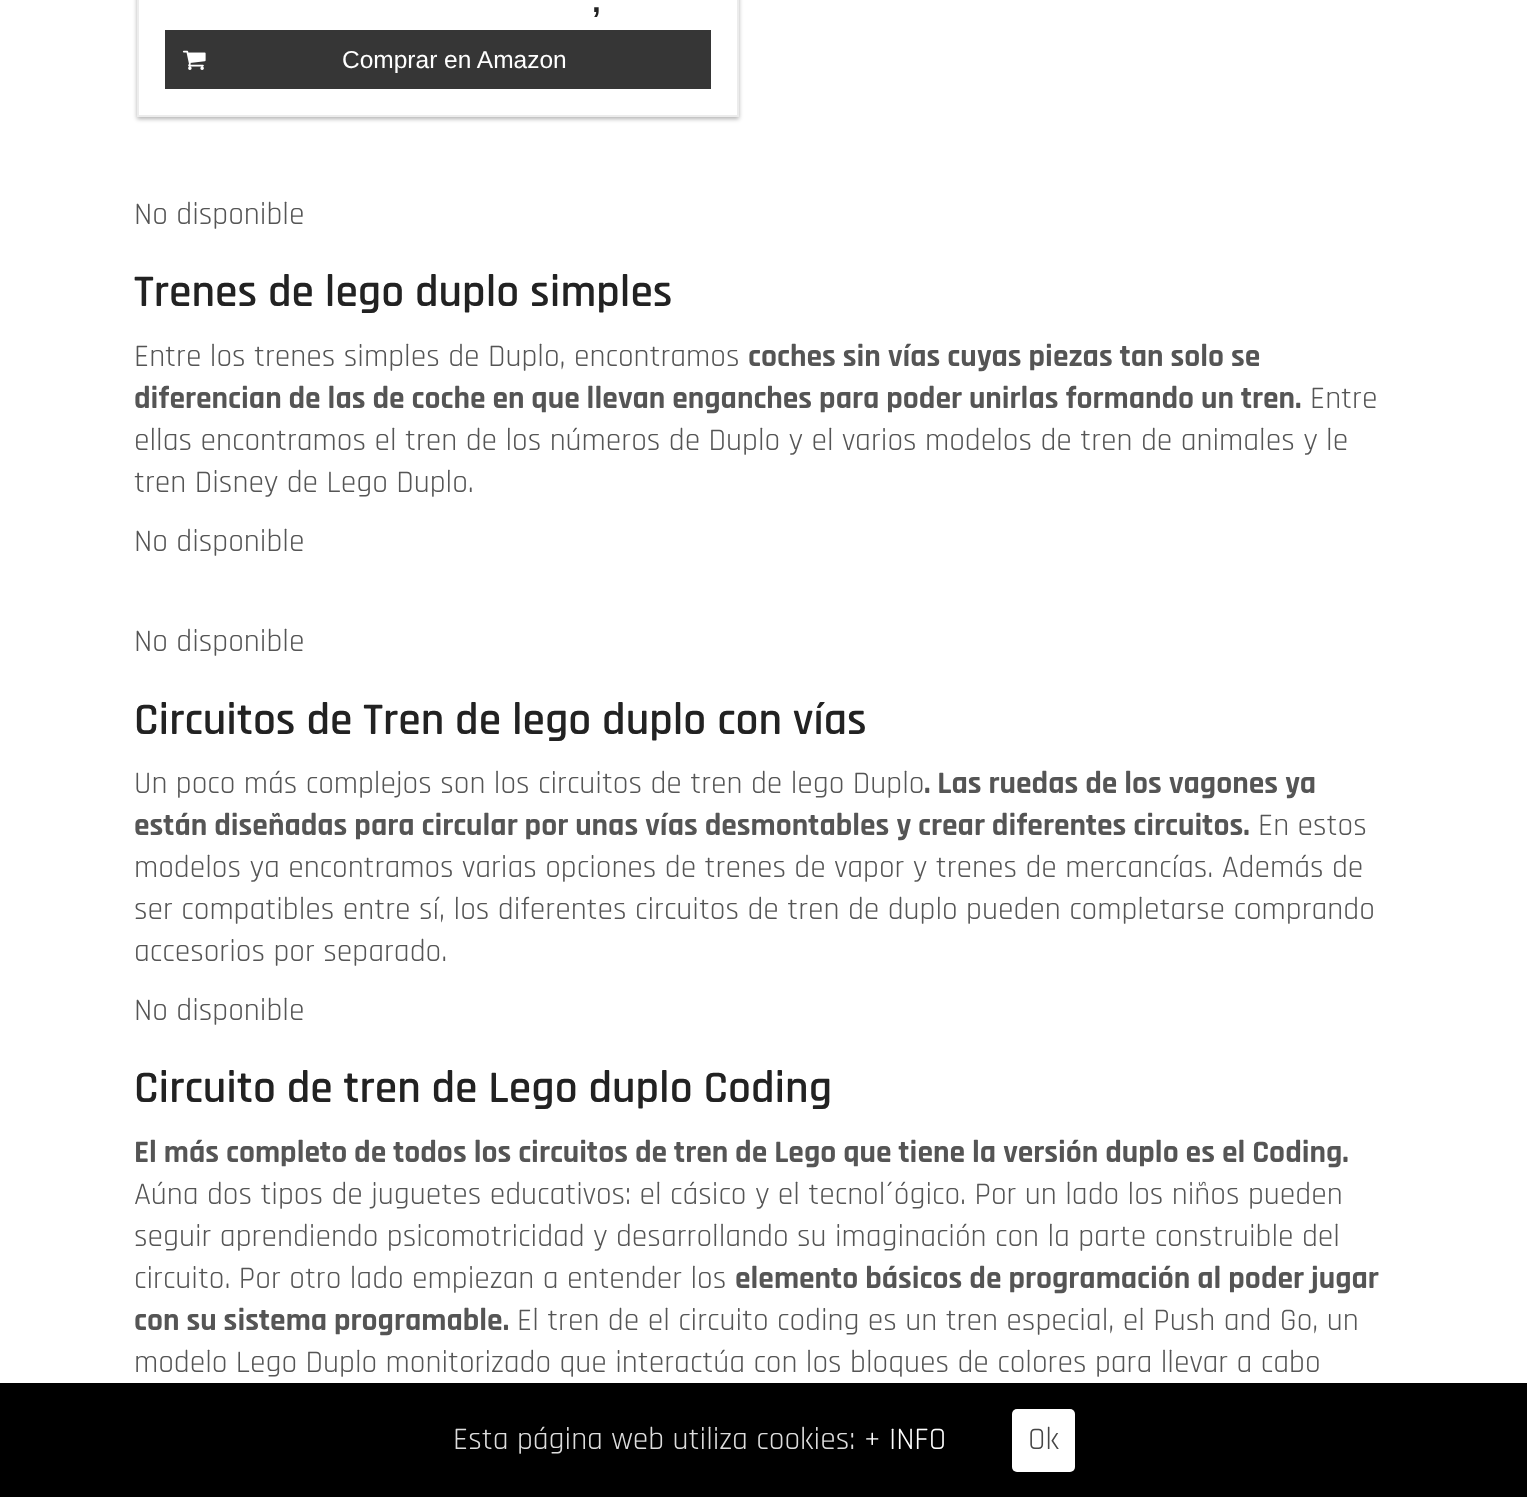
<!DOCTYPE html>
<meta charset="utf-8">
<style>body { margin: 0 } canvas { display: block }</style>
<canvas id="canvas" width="1527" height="1497"></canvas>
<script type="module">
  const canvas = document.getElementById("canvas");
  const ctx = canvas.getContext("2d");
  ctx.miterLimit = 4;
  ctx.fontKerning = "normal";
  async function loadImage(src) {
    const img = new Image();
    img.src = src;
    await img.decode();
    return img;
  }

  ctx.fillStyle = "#ffffff";
  ctx.fillRect(0, 0, 1527, 1497);
  ctx.fillStyle = "rgba(0, 0, 0, 0.3)";
  ctx.filter = "blur(2px)";
  ctx.beginPath();
  ctx.rect(137, -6, 602, 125);
  ctx.fill();
  ctx.filter = "none";
  ctx.fillStyle = "#ffffff";
  ctx.beginPath();
  ctx.rect(138, -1, 600, 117);
  ctx.fill();
  ctx.strokeStyle = "#ececec";
  ctx.lineWidth = 2;
  ctx.stroke();
  ctx.font = "bold 31.5px Liberation Sans";
  ctx.fillStyle = "#222222";
  ctx.fillText(",", 592, 12);
  ctx.fillStyle = "#363636";
  ctx.fillRect(165, 30, 546, 59);
  ctx.drawImage(await loadImage("img1.png"), 182, 50, 24, 20);
  ctx.font = "24.5px Liberation Sans";
  ctx.fillStyle = "#ffffff";
  ctx.fillText("Comprar en Amazon", 342, 68);
  ctx.font = "31.5px Rajdhani";
  ctx.fillStyle = "#555555";
  ctx.fillText("No disponible", 134, 224);
  ctx.font = "600 45.5px Rajdhani";
  ctx.fillStyle = "#222222";
  ctx.fillText("Trenes de lego duplo simples", 134, 306);
  ctx.font = "31.5px Rajdhani";
  ctx.fillStyle = "#555555";
  ctx.fillText("Entre los trenes simples de Duplo, encontramos", 134, 366);
  ctx.font = "bold 31.5px Rajdhani";
  ctx.fillText("coches sin vías cuyas piezas tan solo se", 748, 366);
  ctx.fillText("diferencian de las de coche en que llevan enganches para poder unirlas formando un tren.", 134, 408);
  ctx.font = "31.5px Rajdhani";
  ctx.fillText("Entre", 1310, 408);
  ctx.fillText("ellas encontramos el tren de los números de Duplo y el varios modelos de tren de animales y le", 134, 450);
  ctx.fillText("tren Disney de Lego Duplo.", 134, 492);
  ctx.fillText("No disponible", 134, 551);
  ctx.fillText("No disponible", 134, 651);
  ctx.font = "600 45.5px Rajdhani";
  ctx.fillStyle = "#222222";
  ctx.fillText("Circuitos de Tren de lego duplo con vías", 134, 734);
  ctx.font = "31.5px Rajdhani";
  ctx.fillStyle = "#555555";
  ctx.fillText("Un poco más complejos son los circuitos de tren de lego Duplo", 134, 793);
  ctx.font = "bold 31.5px Rajdhani";
  ctx.fillText(". Las ruedas de los vagones ya", 924, 793);
  ctx.fillText("están diseñadas para circular por unas vías desmontables y crear diferentes circuitos.", 134, 835);
  ctx.font = "31.5px Rajdhani";
  ctx.fillText("En estos", 1258, 835);
  ctx.fillText("modelos ya encontramos varias opciones de trenes de vapor y trenes de mercancías. Además de", 134, 877);
  ctx.fillText("ser compatibles entre sí, los diferentes circuitos de tren de duplo pueden completarse comprando", 134, 919);
  ctx.fillText("accesorios por separado.", 134, 961);
  ctx.fillText("No disponible", 134, 1020);
  ctx.font = "600 45.5px Rajdhani";
  ctx.fillStyle = "#222222";
  ctx.fillText("Circuito de tren de Lego duplo Coding", 134, 1102);
  ctx.font = "bold 31.5px Rajdhani";
  ctx.fillStyle = "#555555";
  ctx.fillText("El más completo de todos los circuitos de tren de Lego que tiene la versión duplo es el Coding.", 134, 1162);
  ctx.font = "31.5px Rajdhani";
  ctx.fillText("Aúna dos tipos de juguetes educativos: el cásico y el tecnol´ógico. Por un lado los niños pueden", 134, 1204);
  ctx.fillText("seguir aprendiendo psicomotricidad y desarrollando su imaginación con la parte construible del", 134, 1246);
  ctx.fillText("circuito. Por otro lado empiezan a entender los", 134, 1288);
  ctx.font = "bold 31.5px Rajdhani";
  ctx.fillText("elemento básicos de programación al poder jugar", 735, 1288);
  ctx.fillText("con su sistema programable.", 134, 1330);
  ctx.font = "31.5px Rajdhani";
  ctx.fillText("El tren de el circuito coding es un tren especial, el Push and Go, un", 517, 1330);
  ctx.fillText("modelo Lego Duplo monitorizado que interactúa con los bloques de colores para llevar a cabo", 134, 1372);
  ctx.fillStyle = "#000000";
  ctx.fillRect(0, 1383, 1527, 114);
  ctx.fillStyle = "#dddddd";
  ctx.fillText("Esta página web utiliza cookies:", 453, 1449);
  ctx.fillStyle = "#ffffff";
  ctx.fillText("+ INFO", 864, 1449);
  ctx.beginPath();
  ctx.roundRect(1012, 1409, 63, 63, 5);
  ctx.fill();
  ctx.fillStyle = "#464646";
  ctx.fillText("Ok", 1028, 1449);
</script>
